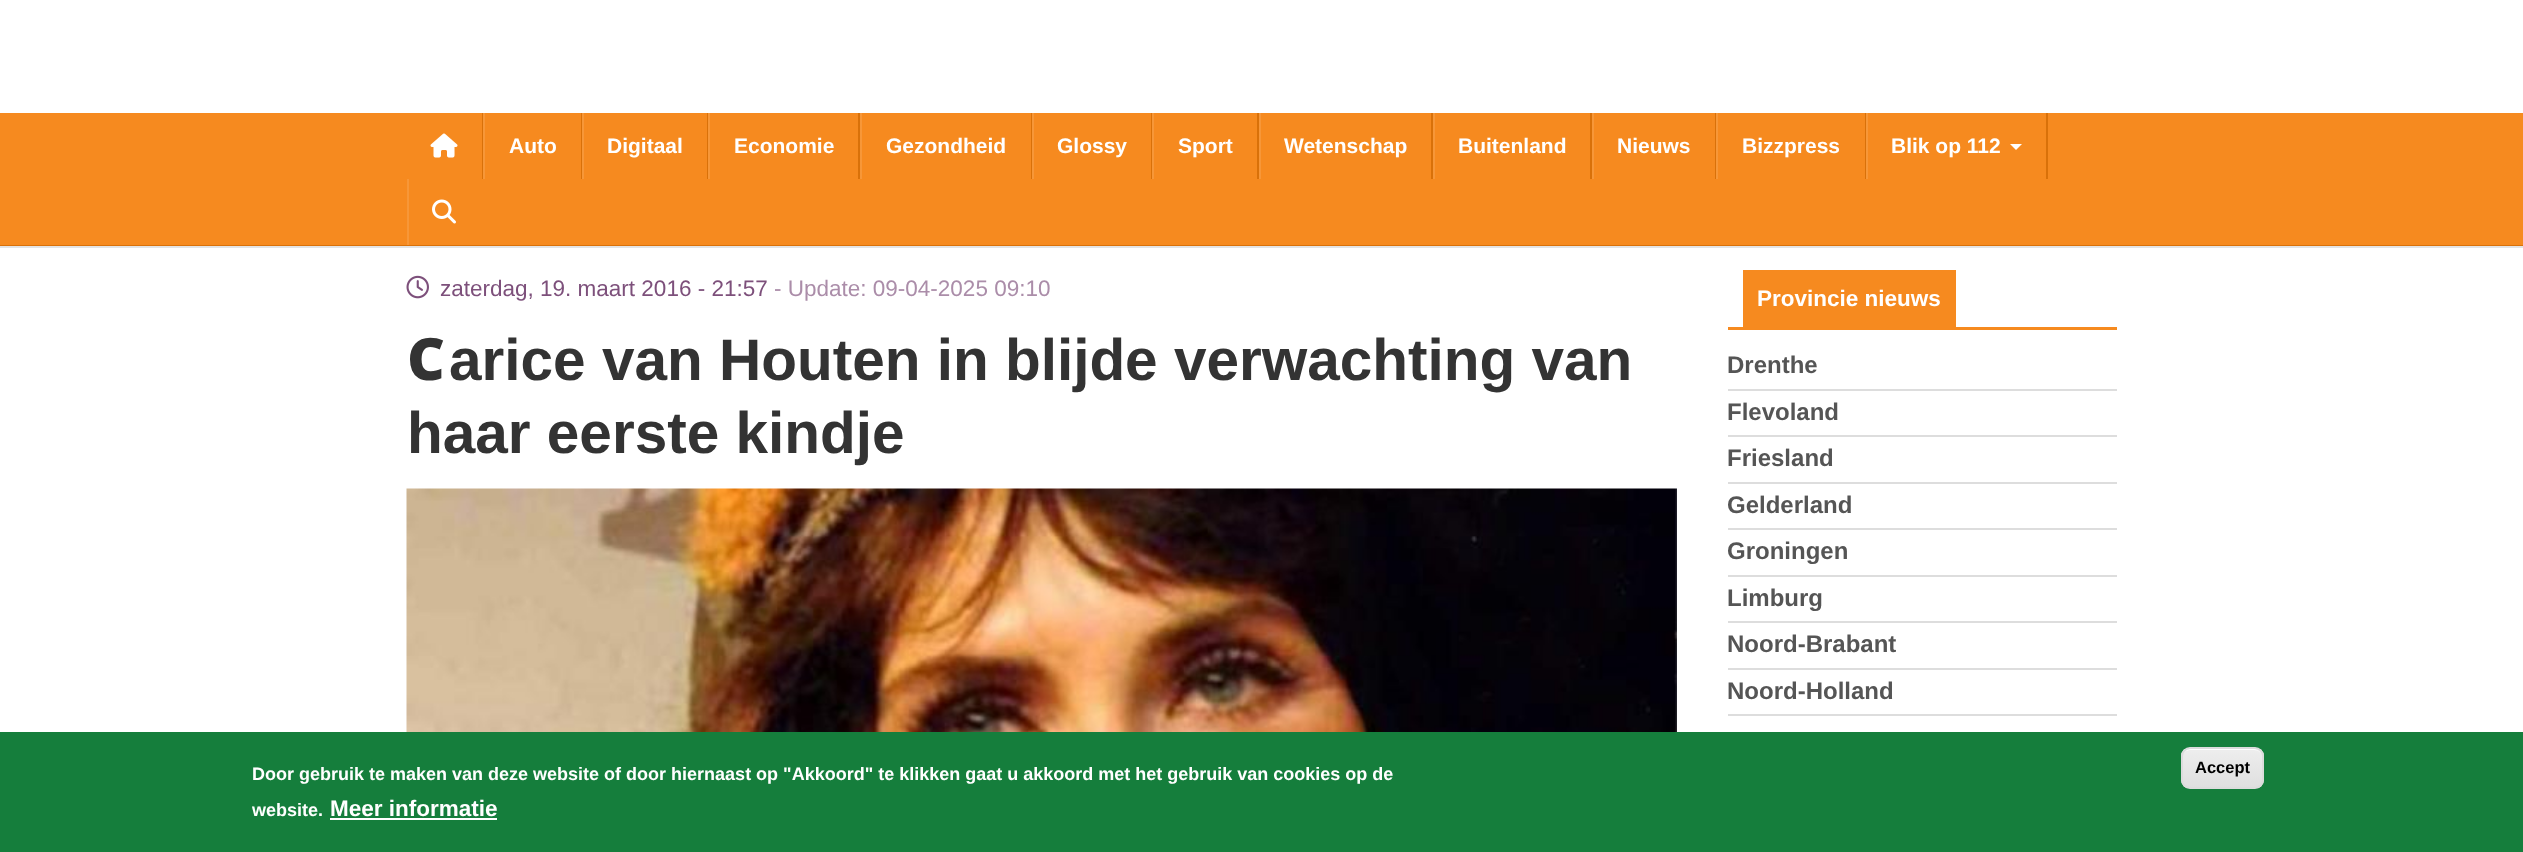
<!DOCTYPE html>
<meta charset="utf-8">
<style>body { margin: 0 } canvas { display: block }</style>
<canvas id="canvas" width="2523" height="852"></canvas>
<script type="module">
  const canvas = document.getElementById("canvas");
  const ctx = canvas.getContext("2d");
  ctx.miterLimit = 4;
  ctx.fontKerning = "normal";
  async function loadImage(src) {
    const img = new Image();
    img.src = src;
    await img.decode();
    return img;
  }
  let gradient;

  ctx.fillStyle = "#ffffff";
  ctx.fillRect(0, 0, 2523, 852);
  ctx.fillStyle = "#f68a1f";
  ctx.fillRect(0, 113, 2523, 132);
  ctx.fillStyle = "#d97109";
  ctx.fillRect(0, 245, 2523, 1);
  ctx.fillRect(482, 113, 1, 66);
  ctx.drawImage(await loadImage("img1.png"), 430, 133, 28, 25);
  ctx.fillRect(581, 113, 1, 66);
  ctx.fillStyle = "#f79738";
  ctx.fillRect(483, 113, 2, 66);
  ctx.font = "bold 21px Liberation Sans";
  ctx.fillStyle = "#ffffff";
  ctx.fillText("Auto", 509, 153);
  ctx.fillStyle = "#d97109";
  ctx.fillRect(707, 113, 1, 66);
  ctx.fillStyle = "#f79738";
  ctx.fillRect(582, 113, 2, 66);
  ctx.fillStyle = "#ffffff";
  ctx.fillText("Digitaal", 607, 153);
  ctx.fillStyle = "#d97109";
  ctx.fillRect(858, 113, 2, 66);
  ctx.fillStyle = "#f79738";
  ctx.fillRect(708, 113, 2, 66);
  ctx.fillStyle = "#ffffff";
  ctx.fillText("Economie", 734, 153);
  ctx.fillStyle = "#d97109";
  ctx.fillRect(1031, 113, 1, 66);
  ctx.fillStyle = "#f79738";
  ctx.fillRect(860, 113, 2, 66);
  ctx.fillStyle = "#ffffff";
  ctx.fillText("Gezondheid", 886, 153);
  ctx.fillStyle = "#d97109";
  ctx.fillRect(1151, 113, 1, 66);
  ctx.fillStyle = "#f79738";
  ctx.fillRect(1032, 113, 2, 66);
  ctx.fillStyle = "#ffffff";
  ctx.fillText("Glossy", 1057, 153);
  ctx.fillStyle = "#d97109";
  ctx.fillRect(1257, 113, 2, 66);
  ctx.fillStyle = "#f79738";
  ctx.fillRect(1152, 113, 2, 66);
  ctx.fillStyle = "#ffffff";
  ctx.fillText("Sport", 1178, 153);
  ctx.fillStyle = "#d97109";
  ctx.fillRect(1431, 113, 2, 66);
  ctx.fillStyle = "#f79738";
  ctx.fillRect(1259, 113, 2, 66);
  ctx.fillStyle = "#ffffff";
  ctx.fillText("Wetenschap", 1284, 153);
  ctx.fillStyle = "#d97109";
  ctx.fillRect(1590, 113, 2, 66);
  ctx.fillStyle = "#f79738";
  ctx.fillRect(1433, 113, 2, 66);
  ctx.fillStyle = "#ffffff";
  ctx.fillText("Buitenland", 1458, 153);
  ctx.fillStyle = "#d97109";
  ctx.fillRect(1715, 113, 1, 66);
  ctx.fillStyle = "#f79738";
  ctx.fillRect(1592, 113, 2, 66);
  ctx.fillStyle = "#ffffff";
  ctx.fillText("Nieuws", 1617, 153);
  ctx.fillStyle = "#d97109";
  ctx.fillRect(1865, 113, 1, 66);
  ctx.fillStyle = "#f79738";
  ctx.fillRect(1716, 113, 2, 66);
  ctx.fillStyle = "#ffffff";
  ctx.fillText("Bizzpress", 1742, 153);
  ctx.fillStyle = "#d97109";
  ctx.fillRect(2046, 113, 2, 66);
  ctx.fillStyle = "#f79738";
  ctx.fillRect(1866, 113, 2, 66);
  ctx.fillStyle = "#ffffff";
  ctx.fillText("Blik op 112", 1891, 153);
  ctx.beginPath();
  ctx.moveTo(2010, 144);
  ctx.lineTo(2022, 144);
  ctx.lineTo(2016, 150);
  ctx.closePath();
  ctx.fill();
  ctx.fillStyle = "#f79738";
  ctx.fillRect(407, 179, 2, 66);
  ctx.drawImage(await loadImage("img2.png"), 432, 199, 24, 25);
  ctx.fillStyle = "#e4e4e4";
  ctx.fillRect(0, 246, 2523, 2);
  ctx.drawImage(await loadImage("img3.png"), 406, 275, 23, 24);
  ctx.font = "22.5px Liberation Sans";
  ctx.fillStyle = "#7d507b";
  ctx.fillText("zaterdag, 19. maart 2016 - 21:57", 440, 296);
  ctx.fillStyle = "#ab8da9";
  ctx.fillText("- Update: 09-04-2025 09:10", 774, 296);
  ctx.font = "900 58.5px Noto Sans";
  ctx.fillStyle = "#333333";
  ctx.fillText("C", 407, 380);
  ctx.font = "bold 58.5px Liberation Sans";
  ctx.fillText("arice van Houten in blijde verwachting van", 449, 380);
  ctx.fillText("haar eerste kindje", 407, 453);
  ctx.drawImage(await loadImage("img4.png"), 406, 488, 1271, 244);
  ctx.fillStyle = "#f68a1f";
  ctx.fillRect(1743, 270, 213, 57);
  ctx.font = "bold 22.5px Liberation Sans";
  ctx.fillStyle = "#ffffff";
  ctx.fillText("Provincie nieuws", 1757, 306);
  ctx.fillStyle = "#f68a1f";
  ctx.fillRect(1728, 327, 389, 3);
  ctx.fillStyle = "#dddddd";
  ctx.fillRect(1728, 389, 389, 2);
  ctx.font = "bold 24px Liberation Sans";
  ctx.fillStyle = "#555555";
  ctx.fillText("Drenthe", 1727, 373);
  ctx.fillStyle = "#dddddd";
  ctx.fillRect(1728, 435, 389, 2);
  ctx.fillStyle = "#555555";
  ctx.fillText("Flevoland", 1727, 420);
  ctx.fillStyle = "#dddddd";
  ctx.fillRect(1728, 482, 389, 2);
  ctx.fillStyle = "#555555";
  ctx.fillText("Friesland", 1727, 466);
  ctx.fillStyle = "#dddddd";
  ctx.fillRect(1728, 528, 389, 2);
  ctx.fillStyle = "#555555";
  ctx.fillText("Gelderland", 1727, 513);
  ctx.fillStyle = "#dddddd";
  ctx.fillRect(1728, 575, 389, 2);
  ctx.fillStyle = "#555555";
  ctx.fillText("Groningen", 1727, 559);
  ctx.fillStyle = "#dddddd";
  ctx.fillRect(1728, 621, 389, 2);
  ctx.fillStyle = "#555555";
  ctx.fillText("Limburg", 1727, 606);
  ctx.fillStyle = "#dddddd";
  ctx.fillRect(1728, 668, 389, 2);
  ctx.fillStyle = "#555555";
  ctx.fillText("Noord-Brabant", 1727, 652);
  ctx.fillStyle = "#dddddd";
  ctx.fillRect(1728, 714, 389, 2);
  ctx.fillStyle = "#555555";
  ctx.fillText("Noord-Holland", 1727, 699);
  ctx.fillStyle = "#157e3c";
  ctx.fillRect(0, 732, 2523, 120);
  ctx.font = "bold 18px Liberation Sans";
  ctx.fillStyle = "#ffffff";
  ctx.fillText("Door gebruik te maken van deze website of door hiernaast op \"Akkoord\" te klikken gaat u akkoord met het gebruik van cookies op de", 252, 780);
  ctx.fillText("website.", 252, 816);
  ctx.font = "bold 22.5px Liberation Sans";
  ctx.fillText("Meer informatie", 330, 816);
  ctx.fillRect(330, 818, 167, 2);
  ctx.save();
  ctx.beginPath();
  ctx.roundRect(2181, 747, 83, 42, 9);
  ctx.clip();
  gradient = ctx.createLinearGradient(2222, 749, 2222, 788);
  gradient.addColorStop(0.05, "#ededed");
  gradient.addColorStop(1, "#dfdfdf");
  ctx.fillStyle = gradient;
  ctx.fillRect(2181, 749, 83, 39);
  ctx.restore();
  ctx.beginPath();
  ctx.moveTo(2190, 750);
  ctx.lineTo(2254, 750);
  ctx.bezierCurveTo(2259, 750, 2262, 753, 2262, 758);
  ctx.lineTo(2262, 757);
  ctx.bezierCurveTo(2262, 753, 2258, 749, 2254, 749);
  ctx.lineTo(2191, 749);
  ctx.bezierCurveTo(2189, 749, 2186, 750, 2185, 752);
  ctx.bezierCurveTo(2186, 751, 2188, 750, 2190, 750);
  ctx.closePath();
  ctx.fill();
  ctx.beginPath();
  ctx.roundRect(2182, 748, 81, 40, 8);
  ctx.strokeStyle = "#dcdcdc";
  ctx.lineWidth = 2;
  ctx.stroke();
  ctx.font = "bold 16.5px Liberation Sans";
  ctx.fillStyle = "#000000";
  ctx.fillText("Accept", 2195, 773);
</script>
